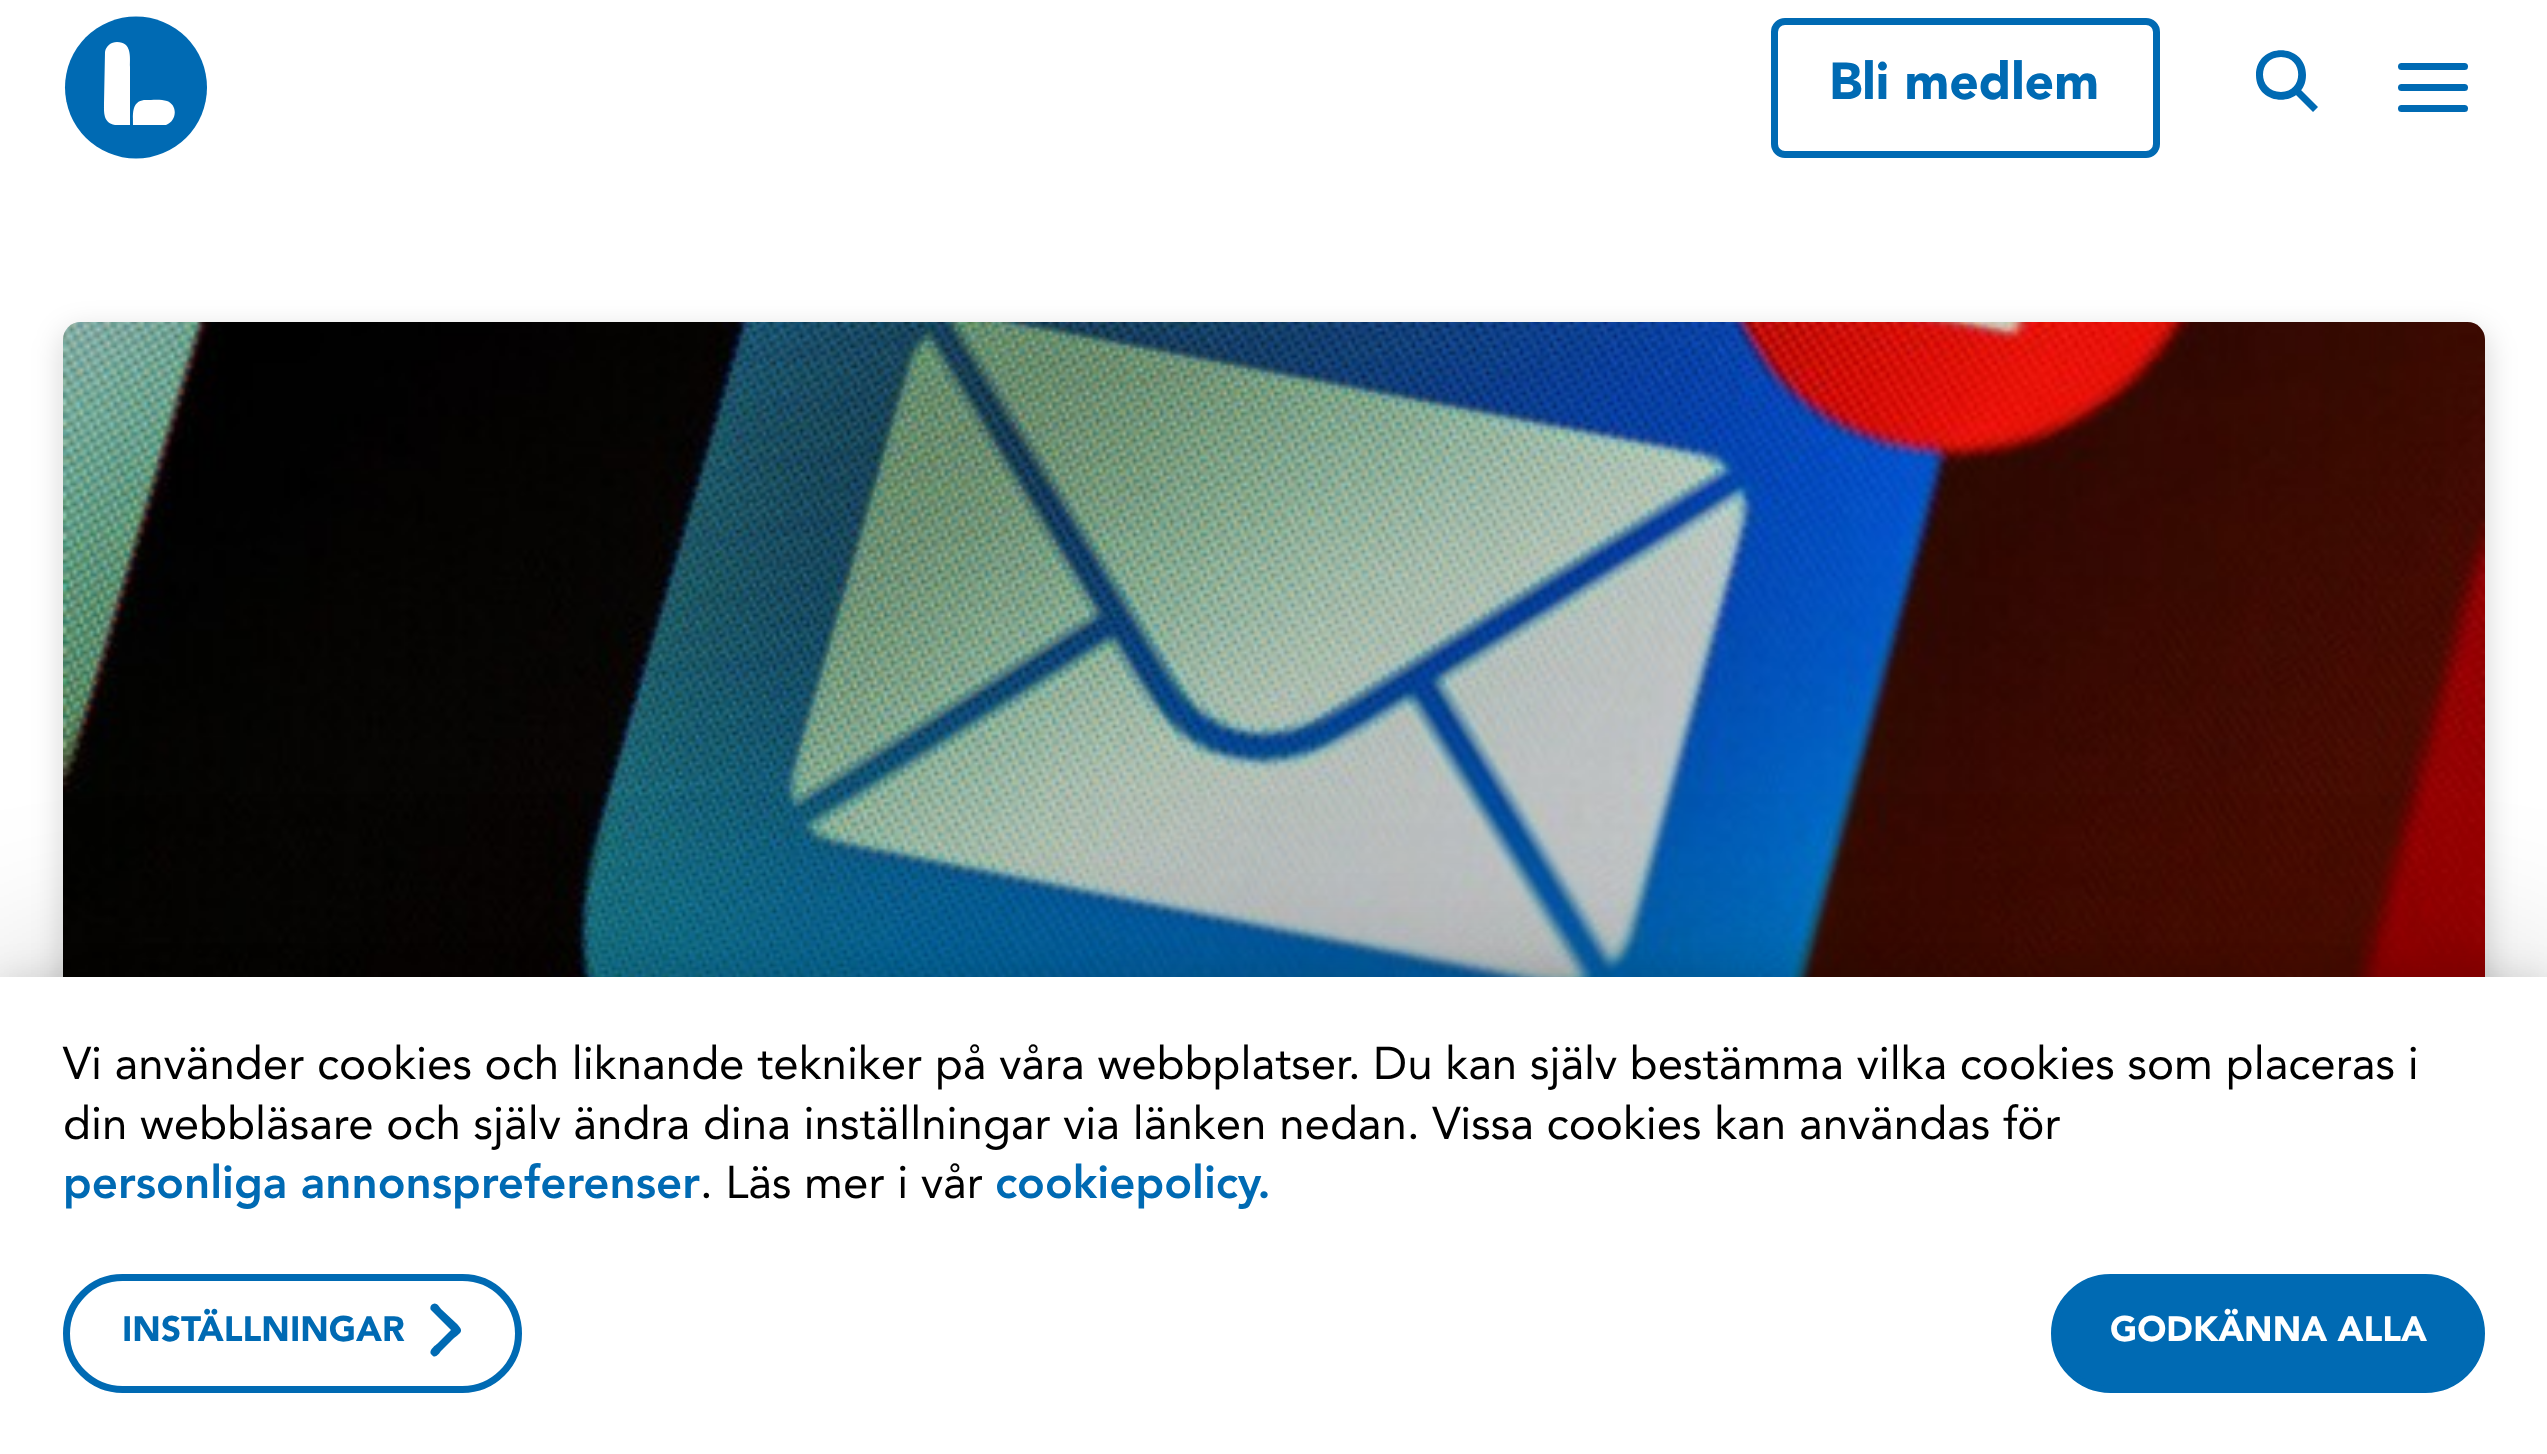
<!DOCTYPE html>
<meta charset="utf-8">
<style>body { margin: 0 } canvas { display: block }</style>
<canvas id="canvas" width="2547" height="1454"></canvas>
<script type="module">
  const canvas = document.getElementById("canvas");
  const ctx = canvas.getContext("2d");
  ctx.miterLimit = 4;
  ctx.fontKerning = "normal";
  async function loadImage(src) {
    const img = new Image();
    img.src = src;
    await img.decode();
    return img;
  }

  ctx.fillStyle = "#ffffff";
  ctx.fillRect(0, 0, 2547, 1454);
  ctx.fillStyle = "#006ab3";
  ctx.beginPath();
  ctx.arc(136, 87.5, 71, 0, Math.PI * 2);
  ctx.fill();
  ctx.fillStyle = "#ffffff";
  ctx.beginPath();
  ctx.moveTo(117, 42);
  ctx.bezierCurveTo(132, 42, 130, 57, 130, 67);
  ctx.lineTo(130, 125);
  ctx.lineTo(115, 125);
  ctx.bezierCurveTo(103, 123, 104, 112, 104, 103);
  ctx.lineTo(105, 52);
  ctx.bezierCurveTo(106, 46, 111, 42, 117, 42);
  ctx.closePath();
  ctx.fill();
  ctx.save();
  ctx.beginPath();
  ctx.rect(104, 42, 71, 83);
  ctx.clip();
  ctx.beginPath();
  ctx.moveTo(146, 100);
  ctx.bezierCurveTo(152, 100, 161, 99, 167, 101);
  ctx.bezierCurveTo(178, 105, 177, 121, 166, 125);
  ctx.bezierCurveTo(161, 126, 157, 125, 152, 125);
  ctx.lineTo(133, 125);
  ctx.bezierCurveTo(133, 115, 131, 100, 146, 100);
  ctx.closePath();
  ctx.fill();
  ctx.restore();
  ctx.beginPath();
  ctx.roundRect(1774.5, 21.5, 382, 133, 10.5);
  ctx.strokeStyle = "#006ab3";
  ctx.lineWidth = 7;
  ctx.stroke();
  ctx.font = "900 51.5px Avenir";
  ctx.fillStyle = "#006ab3";
  ctx.fillText("Bli medlem", 1829, 99);
  ctx.beginPath();
  ctx.moveTo(2296, 85);
  ctx.lineTo(2318, 107);
  ctx.lineTo(2313, 112);
  ctx.lineTo(2291, 90);
  ctx.closePath();
  ctx.moveTo(2281, 57);
  ctx.bezierCurveTo(2257, 57, 2257, 92, 2281, 92);
  ctx.bezierCurveTo(2304, 92, 2304, 57, 2281, 57);
  ctx.closePath();
  ctx.moveTo(2256, 75);
  ctx.bezierCurveTo(2256, 42, 2306, 42, 2306, 75);
  ctx.bezierCurveTo(2306, 108, 2256, 108, 2256, 75);
  ctx.closePath();
  ctx.fill();
  ctx.beginPath();
  ctx.roundRect(2398, 84, 70, 7, 3.5);
  ctx.fill();
  ctx.beginPath();
  ctx.roundRect(2398, 63, 70, 7, 3.5);
  ctx.fill();
  ctx.beginPath();
  ctx.roundRect(2398, 105, 70, 7, 3.5);
  ctx.fill();
  ctx.fillStyle = "rgba(0, 0, 0, 0.14)";
  ctx.filter = "blur(14.5px)";
  ctx.beginPath();
  ctx.roundRect(60, 329, 2429, 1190, 21);
  ctx.fill();
  ctx.filter = "none";
  ctx.drawImage(await loadImage("img1.png"), 63, 322, 2422, 655);
  ctx.fillStyle = "rgba(0, 0, 0, 0.12)";
  ctx.filter = "blur(17.5px)";
  ctx.beginPath();
  ctx.rect(0, 977, 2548, 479);
  ctx.fill();
  ctx.filter = "none";
  ctx.fillStyle = "rgba(0, 0, 0, 0.2)";
  ctx.filter = "blur(87.5px)";
  ctx.beginPath();
  ctx.rect(0, 977, 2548, 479);
  ctx.fill();
  ctx.filter = "none";
  ctx.fillStyle = "#ffffff";
  ctx.fillRect(0, 977, 2547, 477);
  ctx.font = "45.7px Avenir";
  ctx.fillStyle = "#000000";
  ctx.fillText("Vi använder cookies och liknande tekniker på våra webbplatser. Du kan själv bestämma vilka cookies som placeras i", 63, 1079);
  ctx.fillText("din webbläsare och själv ändra dina inställningar via länken nedan. Vissa cookies kan användas för", 63, 1139);
  ctx.font = "900 45.7px 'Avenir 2'";
  ctx.fillStyle = "#006ab3";
  ctx.fillText("personliga annonspreferenser", 63, 1198);
  ctx.font = "45.7px Avenir";
  ctx.fillStyle = "#000000";
  ctx.fillText(". Läs mer i vår", 700, 1198);
  ctx.font = "900 45.7px 'Avenir 2'";
  ctx.fillStyle = "#006ab3";
  ctx.fillText("cookiepolicy.", 995, 1198);
  ctx.beginPath();
  ctx.roundRect(66.5, 1277.5, 452, 112, 56);
  ctx.stroke();
  ctx.font = "900 35px Avenir";
  ctx.fillText("INSTÄLLNINGAR", 122, 1341);
  ctx.beginPath();
  ctx.moveTo(432, 1355);
  ctx.bezierCurveTo(435, 1359, 439, 1354, 441, 1351);
  ctx.lineTo(452, 1340);
  ctx.bezierCurveTo(461, 1332, 465, 1332, 456, 1323);
  ctx.lineTo(441, 1309);
  ctx.bezierCurveTo(439, 1306, 436, 1302, 433, 1304);
  ctx.bezierCurveTo(430, 1305, 430, 1309, 431, 1310);
  ctx.lineTo(451, 1330);
  ctx.lineTo(438, 1343);
  ctx.bezierCurveTo(436, 1345, 427, 1351, 432, 1355);
  ctx.closePath();
  ctx.fill();
  ctx.beginPath();
  ctx.roundRect(2054.5, 1277.5, 427, 112, 56);
  ctx.fill();
  ctx.stroke();
  ctx.fillStyle = "#ffffff";
  ctx.fillText("GODKÄNNA ALLA", 2110, 1341);
</script>
